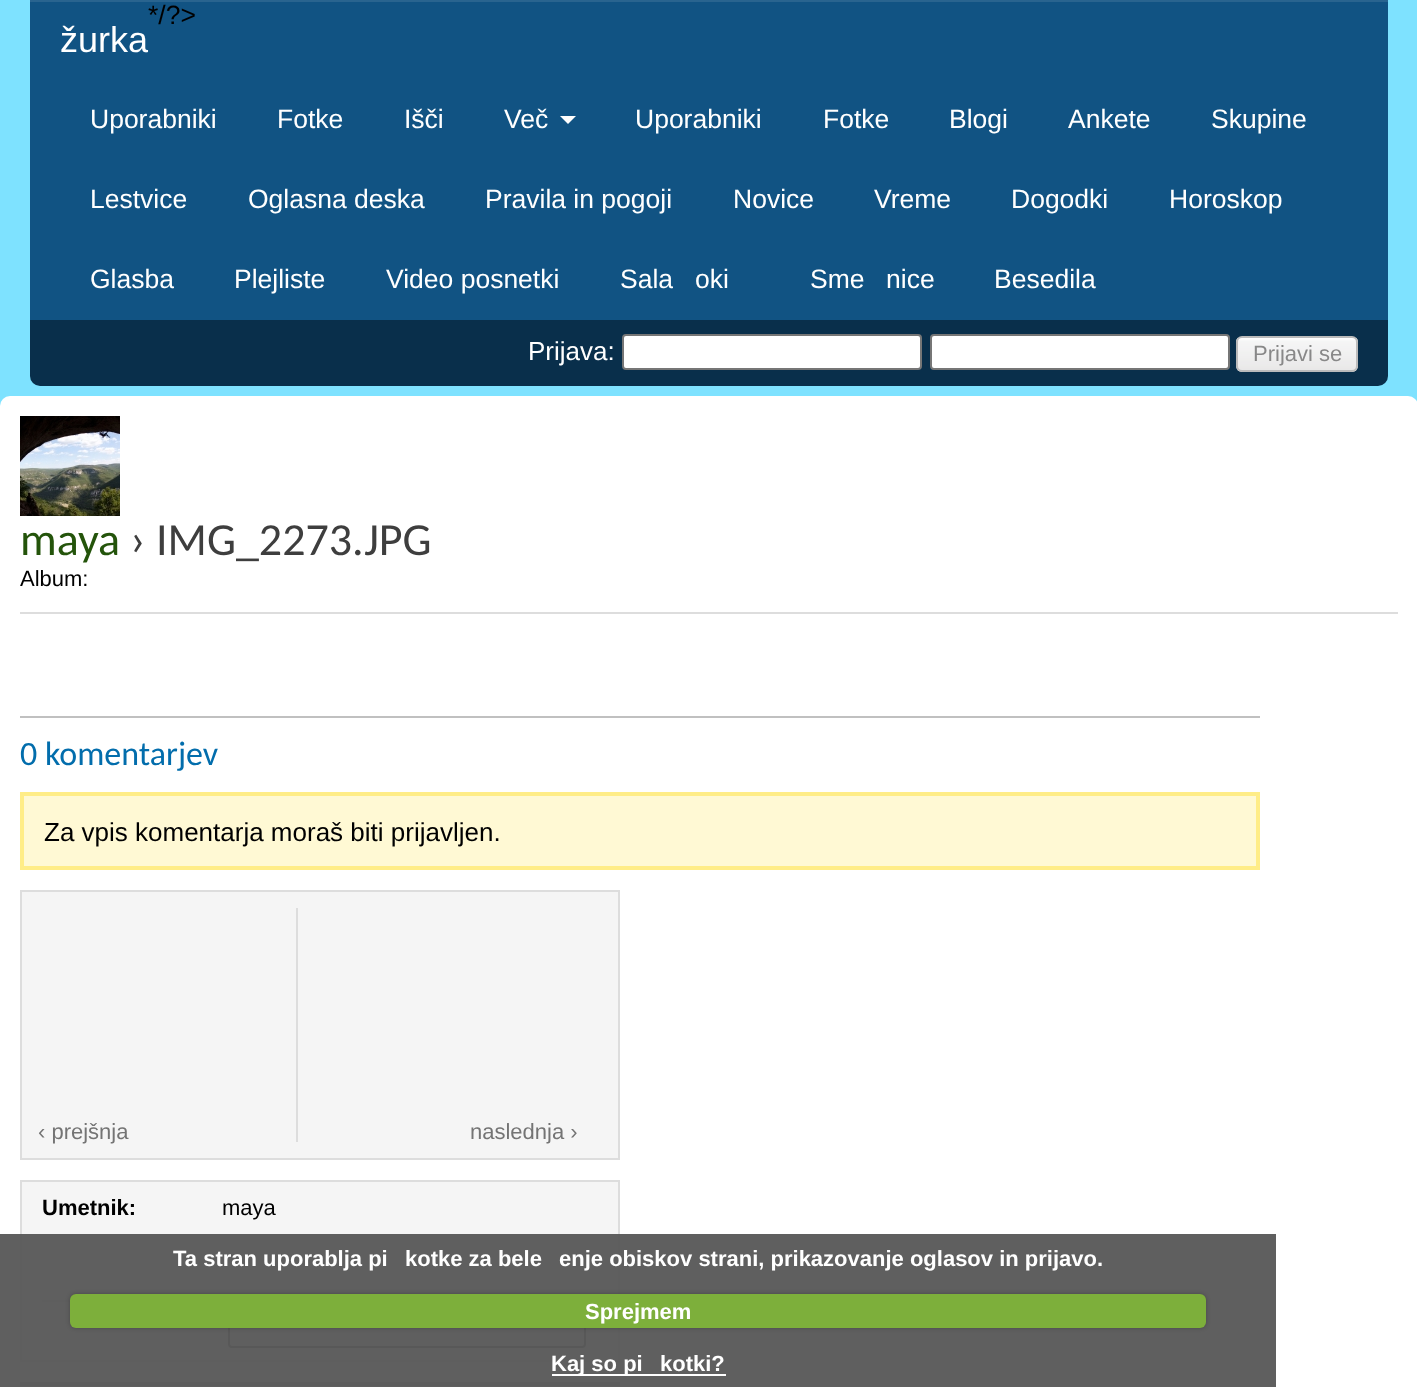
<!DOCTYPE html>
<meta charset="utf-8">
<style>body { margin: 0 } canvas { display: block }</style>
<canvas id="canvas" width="1417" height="1387"></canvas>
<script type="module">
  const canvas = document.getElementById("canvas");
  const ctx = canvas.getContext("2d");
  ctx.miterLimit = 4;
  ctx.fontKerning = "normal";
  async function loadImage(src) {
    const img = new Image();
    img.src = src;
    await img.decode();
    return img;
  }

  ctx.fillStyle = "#7ee2ff";
  ctx.fillRect(0, 0, 1417, 1387);
  ctx.fillStyle = "#115383";
  ctx.fillRect(30, 2, 1358, 318);
  ctx.fillStyle = "#29648f";
  ctx.fillRect(30, 0, 1358, 2);
  ctx.font = "26.5px Liberation Sans";
  ctx.fillStyle = "#000000";
  ctx.fillText("*/?>", 148, 24);
  ctx.fillStyle = "#ffffff";
  ctx.fillText("Uporabniki", 90, 128);
  ctx.fillText("Fotke", 277, 128);
  ctx.fillText("Išči", 404, 128);
  ctx.fillText("Več", 504, 128);
  ctx.beginPath();
  ctx.moveTo(560, 116);
  ctx.lineTo(576, 116);
  ctx.lineTo(568, 124);
  ctx.closePath();
  ctx.fill();
  ctx.fillText("Uporabniki", 635, 128);
  ctx.fillText("Fotke", 823, 128);
  ctx.fillText("Blogi", 949, 128);
  ctx.fillText("Ankete", 1068, 128);
  ctx.fillText("Skupine", 1211, 128);
  ctx.fillText("Lestvice", 90, 208);
  ctx.fillText("Oglasna deska", 248, 208);
  ctx.fillText("Pravila in pogoji", 485, 208);
  ctx.fillText("Novice", 733, 208);
  ctx.fillText("Vreme", 874, 208);
  ctx.fillText("Dogodki", 1011, 208);
  ctx.fillText("Horoskop", 1169, 208);
  ctx.fillText("Glasba", 90, 288);
  ctx.fillText("Plejliste", 234, 288);
  ctx.fillText("Video posnetki", 386, 288);
  ctx.fillText("Sala", 620, 288);
  ctx.fillText("oki", 695, 288);
  ctx.fillText("Sme", 810, 288);
  ctx.fillText("nice", 886, 288);
  ctx.fillText("Besedila", 994, 288);
  ctx.font = "36px Liberation Sans";
  ctx.fillText("žurka", 60, 52);
  ctx.fillStyle = "#092f4b";
  ctx.beginPath();
  ctx.roundRect(30, 320, 1358, 66, [0, 0, 10, 10]);
  ctx.fill();
  ctx.font = "26px Liberation Sans";
  ctx.fillStyle = "#ffffff";
  ctx.fillText("Prijava:", 528, 360);
  ctx.beginPath();
  ctx.roundRect(623, 335, 298, 34, 3);
  ctx.fill();
  ctx.strokeStyle = "#767676";
  ctx.lineWidth = 2;
  ctx.stroke();
  ctx.beginPath();
  ctx.roundRect(931, 335, 298, 34, 3);
  ctx.fill();
  ctx.stroke();
  ctx.drawImage(await loadImage("img1.png"), 1236, 338, 122, 34);
  ctx.beginPath();
  ctx.roundRect(1237, 337, 120, 34, 5);
  ctx.strokeStyle = "#bbbbbb";
  ctx.stroke();
  ctx.font = "22px Liberation Sans";
  ctx.fillStyle = "#888888";
  ctx.fillText("Prijavi se", 1253, 361);
  ctx.fillStyle = "#ffffff";
  ctx.beginPath();
  ctx.roundRect(0, 396, 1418, 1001, 10);
  ctx.fill();
  ctx.drawImage(await loadImage("img2.png"), 20, 416, 100, 100);
  ctx.fillStyle = "#dddddd";
  ctx.fillRect(20, 612, 1378, 2);
  ctx.font = "46px Carlito";
  ctx.fillStyle = "#24540b";
  ctx.fillText("maya", 20, 555);
  ctx.fillStyle = "#3e3e3e";
  ctx.fillText("› IMG_2273.JPG", 130, 555);
  ctx.font = "22px Liberation Sans";
  ctx.fillStyle = "#000000";
  ctx.fillText("Album:", 20, 586);
  ctx.fillStyle = "#c0c0c0";
  ctx.fillRect(20, 716, 1240, 2);
  ctx.font = "34px Carlito";
  ctx.fillStyle = "#026dac";
  ctx.fillText("0 komentarjev", 20, 765);
  ctx.fillStyle = "#fff9d4";
  ctx.beginPath();
  ctx.rect(22, 794, 1236, 74);
  ctx.fill();
  ctx.strokeStyle = "#ffed87";
  ctx.lineWidth = 4;
  ctx.stroke();
  ctx.font = "26px Liberation Sans";
  ctx.fillStyle = "#000000";
  ctx.fillText("Za vpis komentarja moraš biti prijavljen.", 44, 841);
  ctx.fillStyle = "#f5f5f5";
  ctx.beginPath();
  ctx.rect(21, 891, 598, 268);
  ctx.fill();
  ctx.strokeStyle = "#dddddd";
  ctx.lineWidth = 2;
  ctx.stroke();
  ctx.fillStyle = "#dddddd";
  ctx.fillRect(296, 908, 2, 234);
  ctx.font = "22px Liberation Sans";
  ctx.fillStyle = "#747474";
  ctx.fillText("‹ prejšnja", 38, 1139);
  ctx.fillText("naslednja ›", 470, 1139);
  ctx.fillStyle = "#f5f5f5";
  ctx.beginPath();
  ctx.rect(21, 1181, 598, 180);
  ctx.fill();
  ctx.stroke();
  ctx.font = "bold 22px Liberation Sans";
  ctx.fillStyle = "#000000";
  ctx.fillText("Umetnik:", 42, 1215);
  ctx.font = "22px Liberation Sans";
  ctx.fillText("maya", 222, 1215);
  ctx.fillStyle = "#dddddd";
  ctx.fillRect(42, 1300, 28, 2);
  ctx.fillStyle = "#ffffff";
  ctx.beginPath();
  ctx.roundRect(229, 1313, 356, 34, 3);
  ctx.fill();
  ctx.strokeStyle = "#767676";
  ctx.stroke();
  ctx.fillStyle = "#c0c0c0";
  ctx.fillRect(20, 1382, 600, 4);
  ctx.fillStyle = "rgba(86, 86, 86, 0.95)";
  ctx.fillRect(0, 1234, 1276, 153);
  ctx.font = "bold 22px Liberation Sans";
  ctx.fillStyle = "#ffffff";
  ctx.fillText("Ta stran uporablja pi", 173, 1266);
  ctx.fillText("kotke za bele", 405, 1266);
  ctx.fillText("enje obiskov strani, prikazovanje oglasov in prijavo.", 559, 1266);
  ctx.fillStyle = "rgba(0, 0, 0, 0.25)";
  ctx.filter = "blur(2px)";
  ctx.beginPath();
  ctx.roundRect(70, 1294, 1136, 34, 6);
  ctx.fill();
  ctx.filter = "none";
  ctx.fillStyle = "#7daf3b";
  ctx.beginPath();
  ctx.roundRect(70, 1294, 1136, 34, 6);
  ctx.fill();
  ctx.fillStyle = "#ffffff";
  ctx.fillText("Sprejmem", 585, 1319);
  ctx.fillRect(552, 1374, 174, 2);
  ctx.fillText("Kaj so pi", 551, 1371);
  ctx.fillText("kotki?", 660, 1371);
</script>
